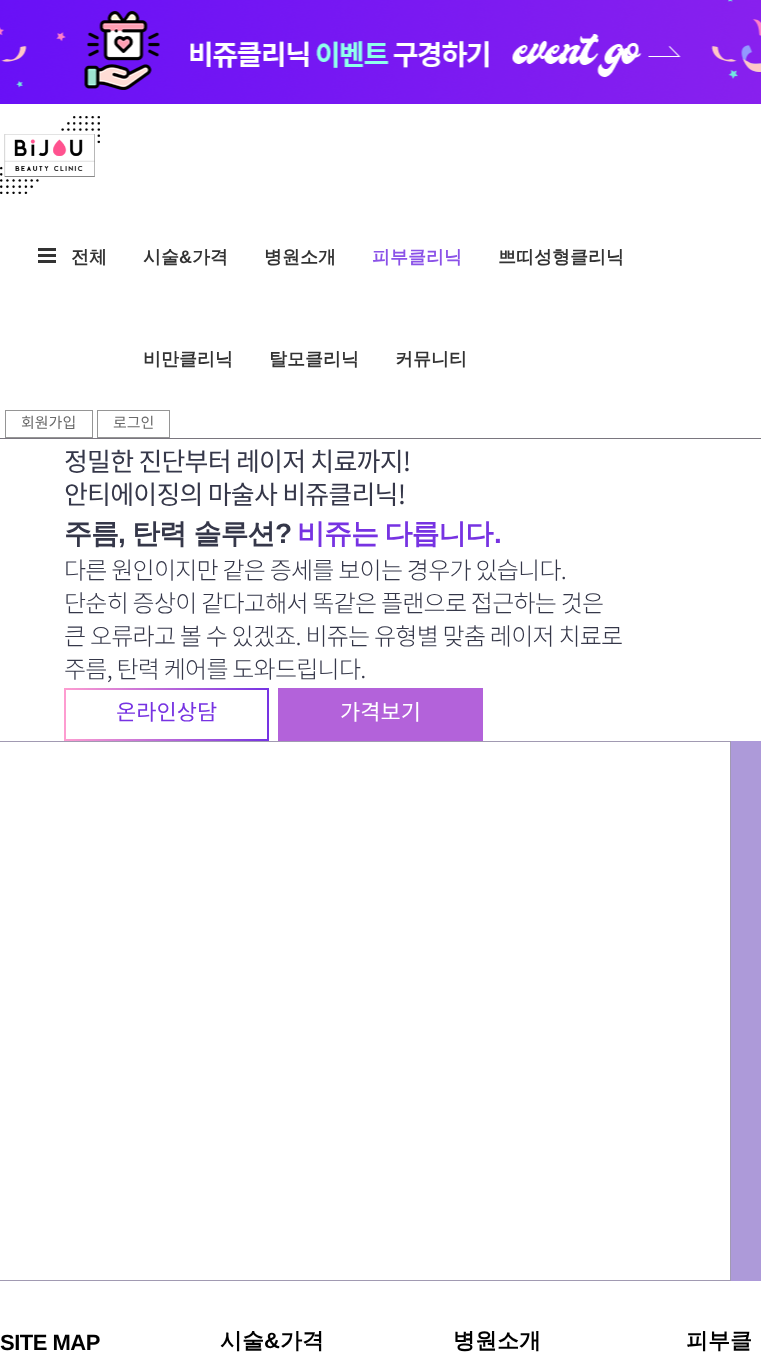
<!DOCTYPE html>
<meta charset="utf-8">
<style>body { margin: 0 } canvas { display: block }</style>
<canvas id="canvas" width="761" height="1360"></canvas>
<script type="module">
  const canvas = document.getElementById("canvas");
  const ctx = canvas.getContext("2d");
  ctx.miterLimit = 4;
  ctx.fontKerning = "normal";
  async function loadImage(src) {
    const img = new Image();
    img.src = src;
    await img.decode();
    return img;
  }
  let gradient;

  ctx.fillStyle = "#ffffff";
  ctx.fillRect(0, 0, 761, 1360);
  ctx.drawImage(await loadImage("img1.png"), 0, 0, 761, 104);
  ctx.fillStyle = "#7a767f";
  ctx.fillRect(0, 438, 761, 1);
  ctx.drawImage(await loadImage("img2.png"), 0, 116, 100, 78);
  ctx.fillStyle = "#333333";
  ctx.fillRect(38, 254, 18, 3);
  ctx.fillRect(38, 248, 18, 3);
  ctx.fillRect(38, 260, 18, 3);
  ctx.font = "bold 18px WenQuanYi Zen Hei";
  ctx.fillText("전체", 71, 263);
  ctx.fillText("시술", 143, 263);
  ctx.font = "bold 18px Liberation Sans";
  ctx.fillText("&", 179, 263);
  ctx.font = "bold 18px WenQuanYi Zen Hei";
  ctx.fillText("가격", 192, 263);
  ctx.fillText("병원소개", 264, 263);
  ctx.fillStyle = "#8b52e8";
  ctx.fillText("피부클리닉", 372, 263);
  ctx.fillStyle = "#333333";
  ctx.fillText("쁘띠성형클리닉", 498, 263);
  ctx.fillText("비만클리닉", 143, 365);
  ctx.fillText("탈모클리닉", 269, 365);
  ctx.fillText("커뮤니티", 395, 365);
  ctx.strokeStyle = "#959595";
  ctx.strokeRect(5.5, 410.5, 87, 27);
  ctx.font = "15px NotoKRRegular";
  ctx.fillStyle = "#6a6a6a";
  ctx.fillText("회원가입", 21, 428);
  ctx.strokeRect(97.5, 410.5, 72, 27);
  ctx.fillText("로그인", 113, 428);
  ctx.letterSpacing = "-0.8px";
  ctx.font = "26px NotoKRRegular";
  ctx.fillStyle = "#353749";
  ctx.fillText("정밀한 진단부터 레이저 치료까지!", 64, 471);
  ctx.fillText("안티에이징의 마술사 비쥬클리닉!", 64, 504);
  ctx.letterSpacing = "-1px";
  ctx.font = "bold 28px WenQuanYi Zen Hei";
  ctx.fillText("주름", 64, 543);
  ctx.font = "bold 28px Liberation Sans";
  ctx.fillText(",", 118, 543);
  ctx.font = "bold 28px WenQuanYi Zen Hei";
  ctx.fillText("탄력 솔루션", 132, 543);
  ctx.font = "bold 28px Liberation Sans";
  ctx.fillText("?", 275, 543);
  ctx.wordSpacing = "-1px";
  ctx.font = "bold 28px WenQuanYi Zen Hei";
  ctx.fillStyle = "#7733e2";
  ctx.fillText("비쥬는 다릅니다", 297, 543);
  ctx.wordSpacing = "0px";
  ctx.font = "bold 28px Liberation Sans";
  ctx.fillText(".", 494, 543);
  ctx.letterSpacing = "-0.75px";
  ctx.font = "300 24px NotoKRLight";
  ctx.fillStyle = "#353749";
  ctx.fillText("다른 원인이지만 같은 증세를 보이는 경우가 있습니다.", 64, 579);
  ctx.fillText("단순히 증상이 같다고해서 똑같은 플랜으로 접근하는 것은", 64, 612);
  ctx.fillText("큰 오류라고 볼 수 있겠죠. 비쥬는 유형별 맞춤 레이저 치료로", 64, 645);
  ctx.fillText("주름, 탄력 케어를 도와드립니다.", 64, 678);
  gradient = ctx.createLinearGradient(64, 715, 269, 715);
  gradient.addColorStop(0, "#fe9dd0");
  gradient.addColorStop(1, "#7633e3");
  ctx.fillStyle = gradient;
  ctx.fillRect(64, 688, 205, 53);
  ctx.fillStyle = "#ffffff";
  ctx.fillRect(66, 690, 201, 49);
  ctx.letterSpacing = "0px";
  ctx.font = "22px NotoKRRegular";
  ctx.fillStyle = "#7733e2";
  ctx.fillText("온라인상담", 116, 720);
  ctx.fillStyle = "#b362da";
  ctx.fillRect(278, 688, 205, 53);
  ctx.fillStyle = "#ffffff";
  ctx.fillText("가격보기", 340, 720);
  ctx.fillStyle = "#a19ab2";
  ctx.fillRect(0, 741, 731, 1);
  ctx.fillRect(730, 741, 1, 540);
  ctx.fillRect(0, 1280, 731, 1);
  ctx.fillStyle = "#ad9ad9";
  ctx.fillRect(731, 741, 30, 540);
  ctx.letterSpacing = "-0.5px";
  ctx.font = "bold 22px Liberation Sans";
  ctx.fillStyle = "#000000";
  ctx.fillText("SITE MAP", 0, 1350);
  ctx.letterSpacing = "0px";
  ctx.font = "bold 22px WenQuanYi Zen Hei";
  ctx.fillText("시술", 220, 1348);
  ctx.font = "bold 22px Liberation Sans";
  ctx.fillText("&", 264, 1348);
  ctx.font = "bold 22px WenQuanYi Zen Hei";
  ctx.fillText("가격", 280, 1348);
  ctx.fillText("병원소개", 453, 1348);
  ctx.fillText("피부클", 686, 1348);
</script>
